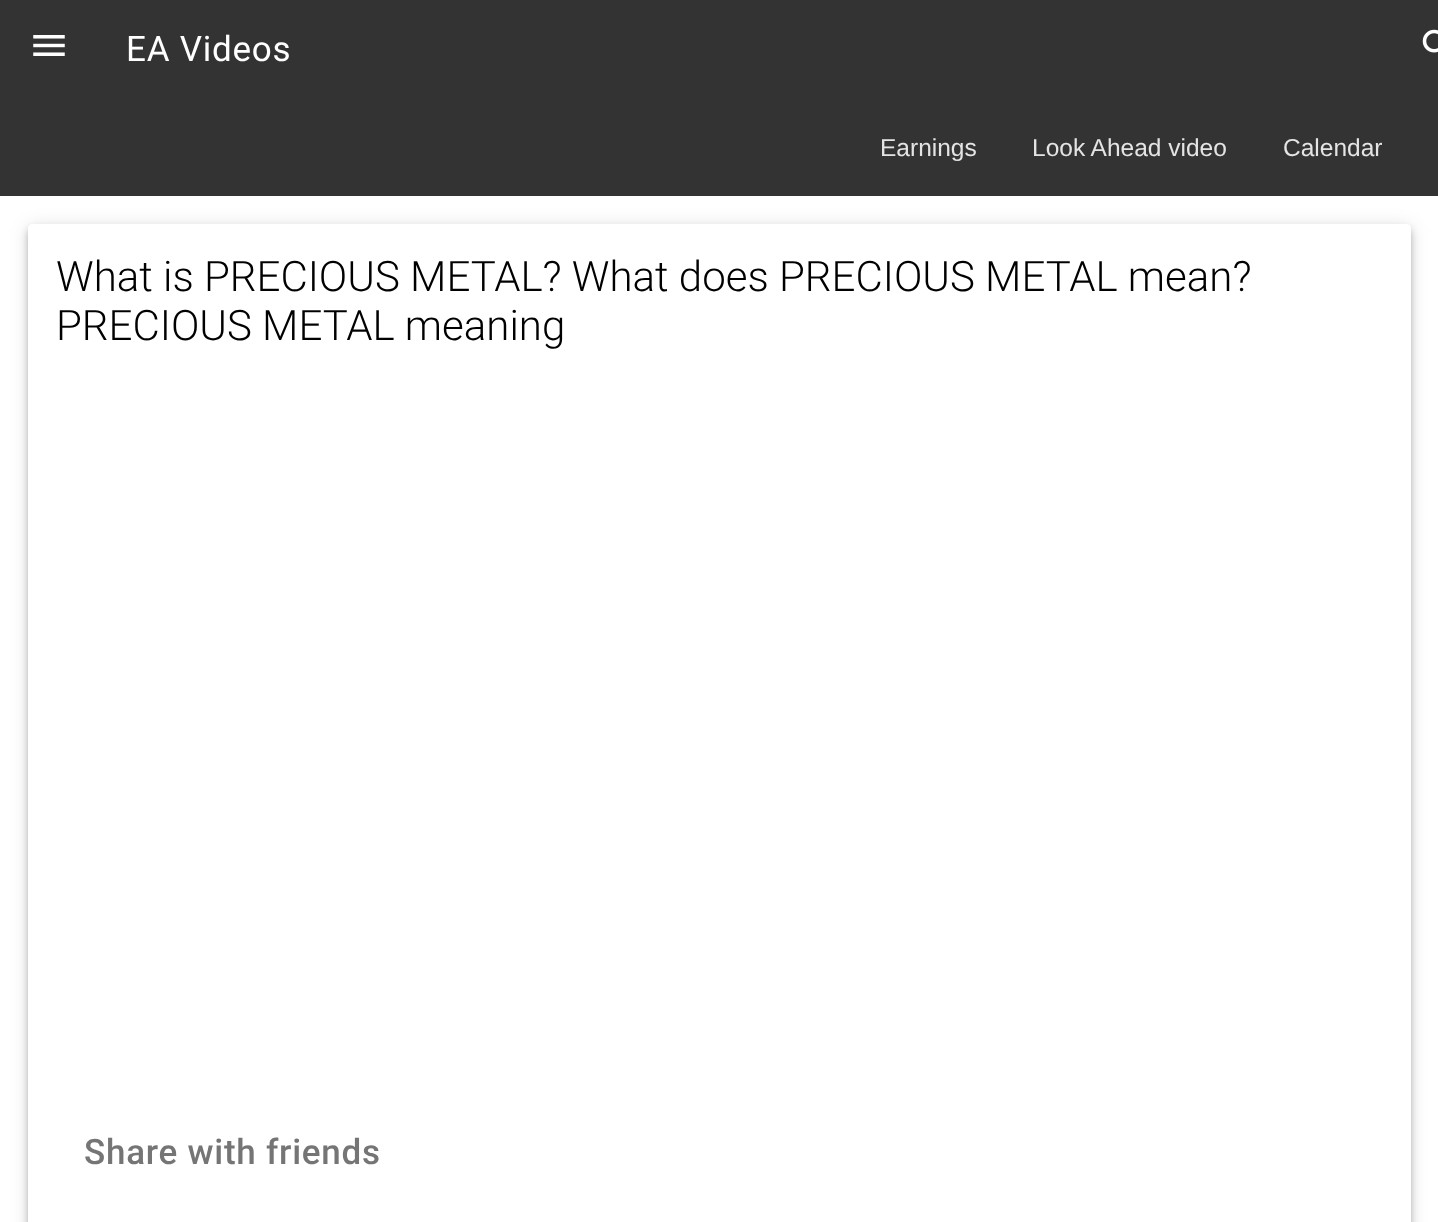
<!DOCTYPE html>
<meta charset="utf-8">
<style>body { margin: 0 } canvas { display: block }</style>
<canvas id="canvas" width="1438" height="1222"></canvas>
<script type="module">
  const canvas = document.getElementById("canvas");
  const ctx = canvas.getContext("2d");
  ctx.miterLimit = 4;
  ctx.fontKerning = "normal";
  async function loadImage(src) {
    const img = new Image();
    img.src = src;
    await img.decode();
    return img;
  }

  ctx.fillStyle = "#ffffff";
  ctx.fillRect(0, 0, 1438, 1222);
  ctx.fillStyle = "#333333";
  ctx.fillRect(0, 0, 1438, 196);
  ctx.drawImage(await loadImage("img1.png"), 33, 35, 32, 21);
  ctx.letterSpacing = "0.75px";
  ctx.font = "35px Roboto";
  ctx.fillStyle = "#ffffff";
  ctx.fillText("EA Videos", 126, 61);
  ctx.drawImage(await loadImage("img2.png"), 1422, 29, 16, 24);
  ctx.letterSpacing = "0px";
  ctx.font = "24.5px Liberation Sans";
  ctx.fillStyle = "#e4e4e4";
  ctx.fillText("Earnings", 880, 156);
  ctx.fillText("Look Ahead video", 1032, 156);
  ctx.fillText("Calendar", 1283, 156);
  ctx.fillStyle = "rgba(0, 0, 0, 0.2)";
  ctx.filter = "blur(3.5px)";
  ctx.beginPath();
  ctx.roundRect(30, 229, 1379, 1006, 2);
  ctx.fill();
  ctx.filter = "none";
  ctx.fillStyle = "rgba(0, 0, 0, 0.12)";
  ctx.filter = "blur(9px)";
  ctx.beginPath();
  ctx.roundRect(28, 226, 1383, 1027, 4);
  ctx.fill();
  ctx.filter = "none";
  ctx.fillStyle = "rgba(0, 0, 0, 0.14)";
  ctx.filter = "blur(4.5px)";
  ctx.beginPath();
  ctx.roundRect(28, 231, 1383, 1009, 4);
  ctx.fill();
  ctx.filter = "none";
  ctx.fillStyle = "#ffffff";
  ctx.beginPath();
  ctx.moveTo(32, 224);
  ctx.lineTo(1407, 224);
  ctx.bezierCurveTo(1409, 224, 1411, 226, 1411, 228);
  ctx.lineTo(1411, 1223);
  ctx.lineTo(28, 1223);
  ctx.lineTo(28, 228);
  ctx.bezierCurveTo(28, 226, 30, 224, 32, 224);
  ctx.closePath();
  ctx.fill();
  ctx.font = "300 42px Roboto";
  ctx.fillStyle = "#000000";
  ctx.fillText("What is PRECIOUS METAL? What does PRECIOUS METAL mean?", 56, 291);
  ctx.fillText("PRECIOUS METAL meaning", 56, 340);
  ctx.letterSpacing = "0.75px";
  ctx.font = "500 35px Roboto";
  ctx.fillStyle = "#757575";
  ctx.fillText("Share with friends", 84, 1164);
</script>
